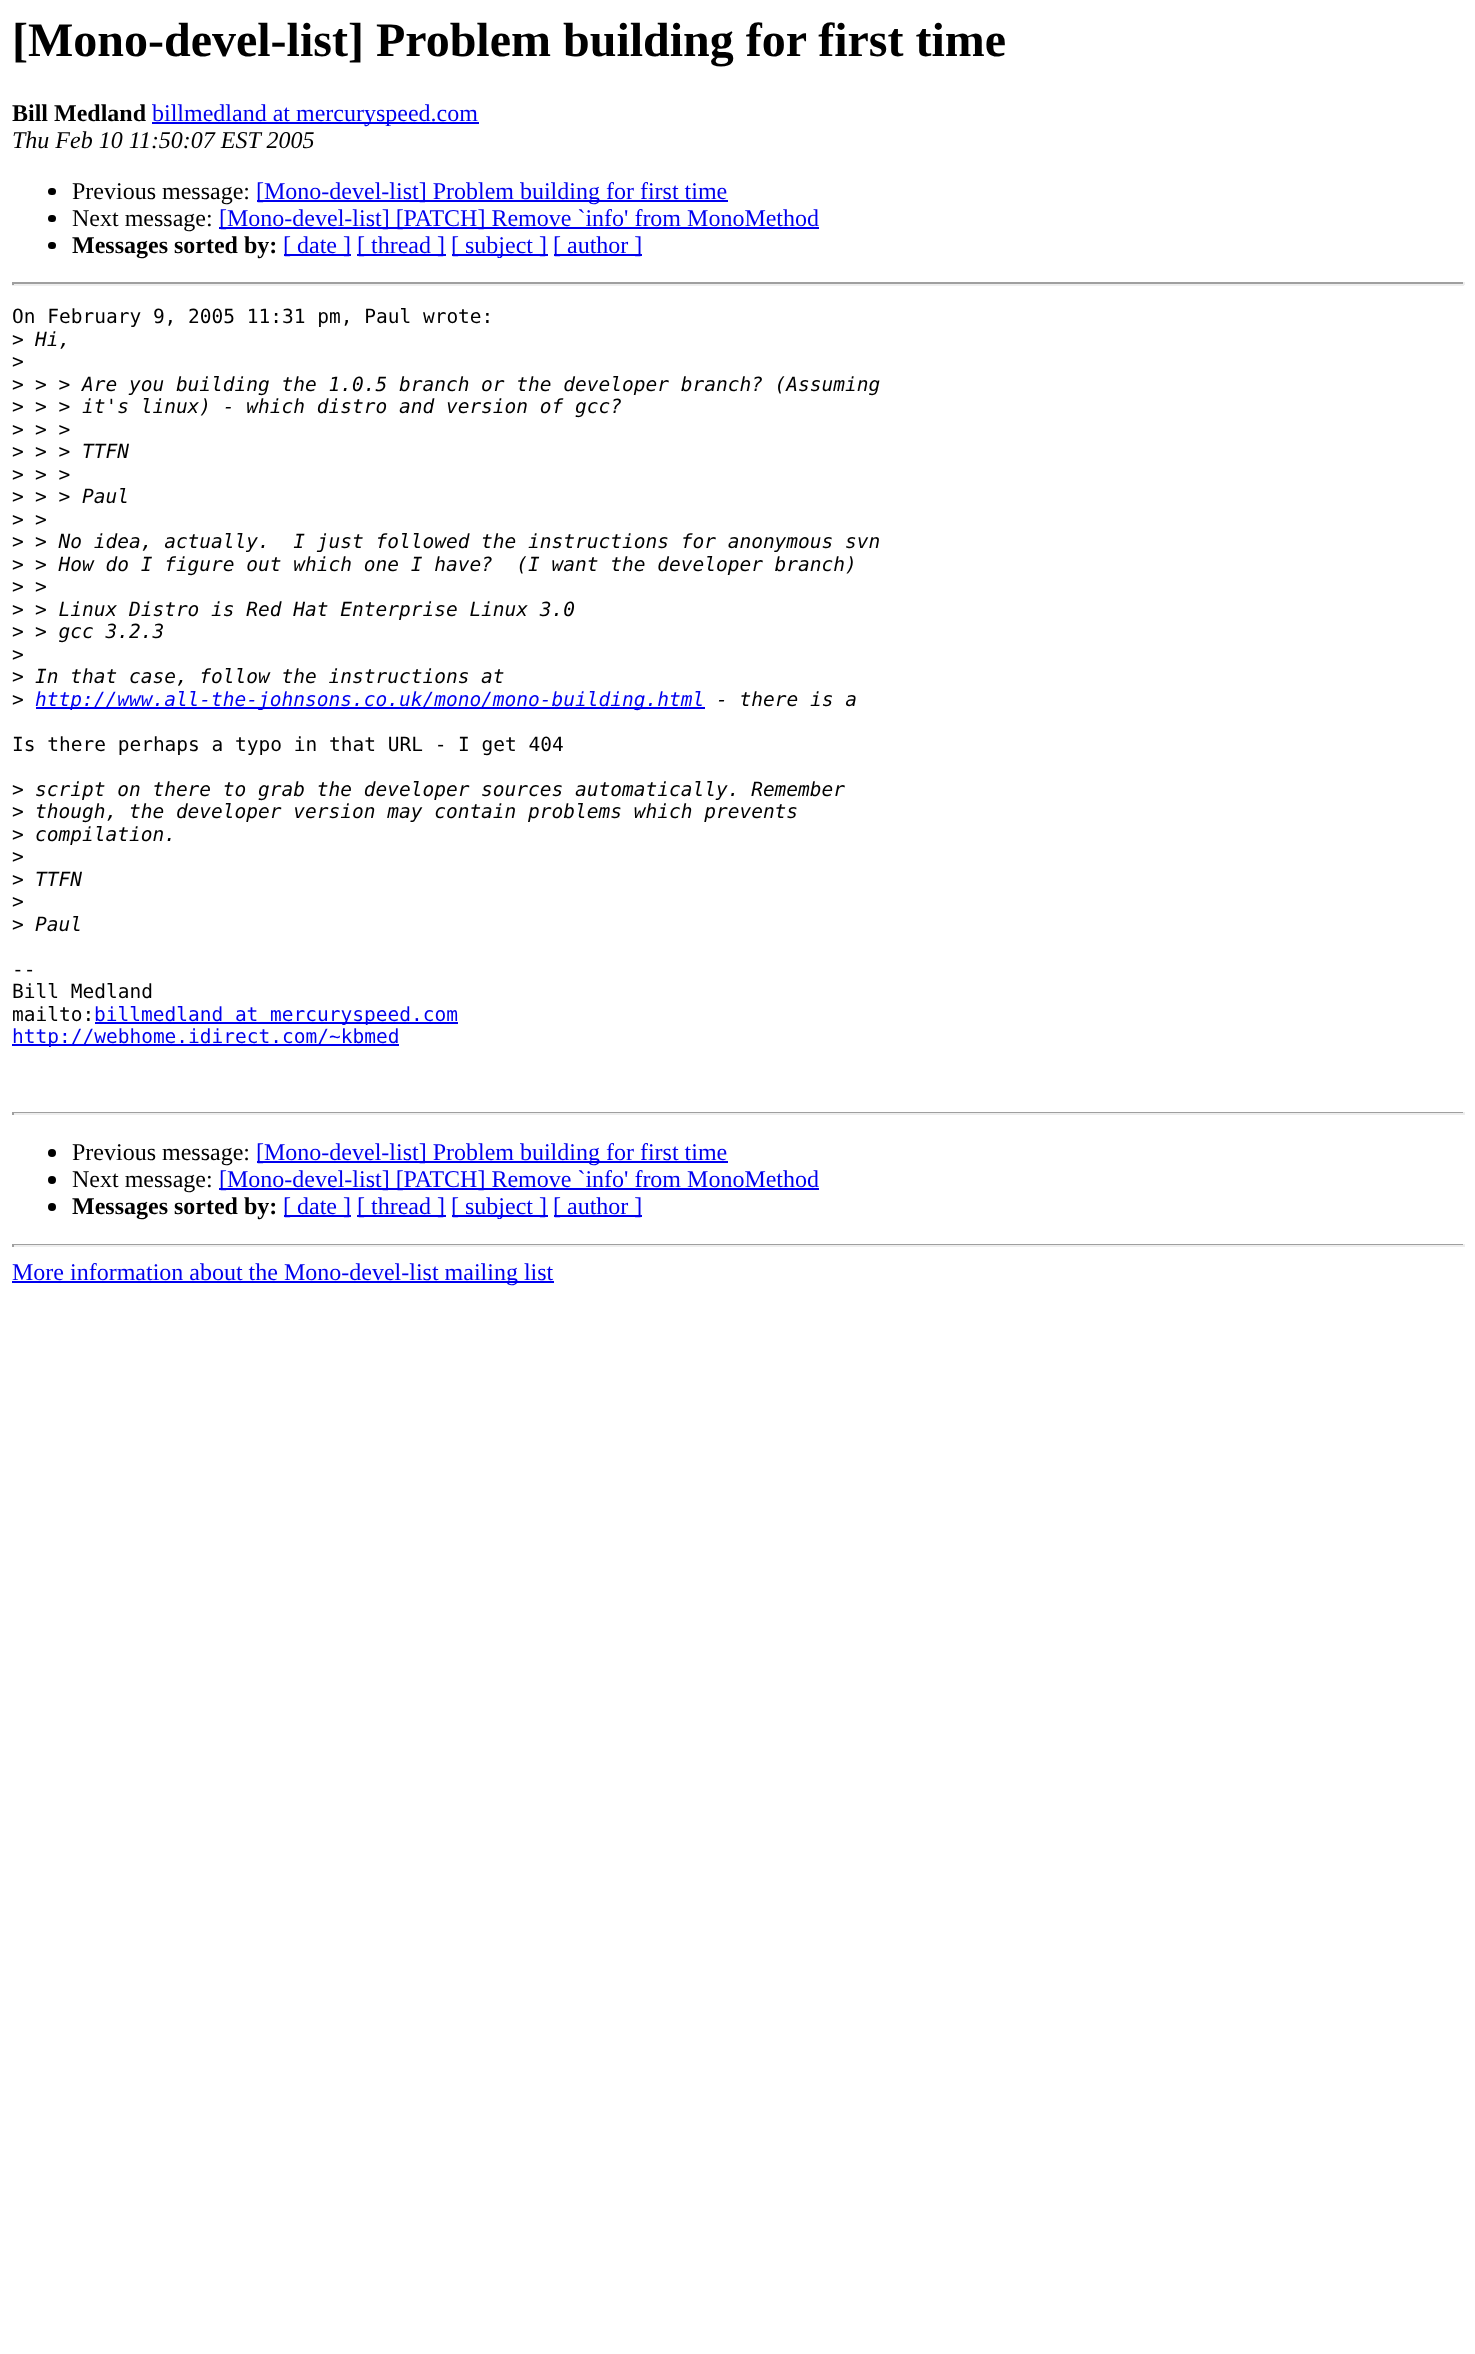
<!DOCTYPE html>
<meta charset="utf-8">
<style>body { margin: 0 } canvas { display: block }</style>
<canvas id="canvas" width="1475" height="2354"></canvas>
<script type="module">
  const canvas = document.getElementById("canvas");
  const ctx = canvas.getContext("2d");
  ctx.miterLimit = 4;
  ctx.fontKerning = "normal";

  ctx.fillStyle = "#ffffff";
  ctx.fillRect(0, 0, 1475, 2354);
  ctx.font = "bold 48px Liberation Serif";
  ctx.fillStyle = "#000000";
  ctx.fillText("[Mono-devel-list] Problem building for first time", 12, 56);
  ctx.font = "bold 24px Liberation Serif";
  ctx.fillText("Bill Medland", 12, 121);
  ctx.fillStyle = "#0000ee";
  ctx.fillRect(152, 122, 327, 2);
  ctx.font = "24px Liberation Serif";
  ctx.fillText("billmedland at mercuryspeed.com", 152, 121);
  ctx.font = "italic 24px Liberation Serif";
  ctx.fillStyle = "#000000";
  ctx.fillText("Thu Feb 10 11:50:07 EST 2005", 12, 148);
  ctx.beginPath();
  ctx.roundRect(48, 188, 8, 7, 3.5);
  ctx.fill();
  ctx.font = "24px Liberation Serif";
  ctx.fillText("Previous message:", 72, 199);
  ctx.fillStyle = "#0000ee";
  ctx.fillRect(257, 200, 471, 2);
  ctx.fillText("[Mono-devel-list] Problem building for first time", 256, 199);
  ctx.fillStyle = "#000000";
  ctx.beginPath();
  ctx.roundRect(48, 215, 8, 7, 3.5);
  ctx.fill();
  ctx.fillText("Next message:", 72, 226);
  ctx.fillStyle = "#0000ee";
  ctx.fillRect(219, 227, 600, 2);
  ctx.fillText("[Mono-devel-list] [PATCH] Remove `info' from MonoMethod", 219, 226);
  ctx.fillStyle = "#000000";
  ctx.beginPath();
  ctx.roundRect(48, 242, 8, 7, 3.5);
  ctx.fill();
  ctx.font = "bold 24px Liberation Serif";
  ctx.fillText("Messages sorted by:", 72, 253);
  ctx.fillStyle = "#0000ee";
  ctx.fillRect(284, 254, 67, 2);
  ctx.font = "24px Liberation Serif";
  ctx.fillText("[ date ]", 283, 253);
  ctx.fillRect(357, 254, 89, 2);
  ctx.fillText("[ thread ]", 357, 253);
  ctx.fillRect(452, 254, 96, 2);
  ctx.fillText("[ subject ]", 451, 253);
  ctx.fillRect(554, 254, 88, 2);
  ctx.fillText("[ author ]", 553, 253);
  ctx.fillStyle = "#9f9f9f";
  ctx.fillRect(12, 282, 1452, 2);
  ctx.fillStyle = "#eeeeee";
  ctx.fillRect(1463, 282, 2, 3);
  ctx.fillRect(12, 284, 1452, 2);
  ctx.fillStyle = "#9f9f9f";
  ctx.fillRect(12, 282, 2, 3);
  ctx.font = "19.5px DejaVu Sans Mono";
  ctx.fillStyle = "#000000";
  ctx.fillText("On February 9, 2005 11:31 pm, Paul wrote:", 12, 323);
  ctx.fillText(">", 12, 346);
  ctx.font = "italic 19.5px DejaVu Sans Mono";
  ctx.fillText("Hi,", 35, 346);
  ctx.font = "19.5px DejaVu Sans Mono";
  ctx.fillText(">", 12, 368);
  ctx.fillText(">", 12, 391);
  ctx.font = "italic 19.5px DejaVu Sans Mono";
  ctx.fillText("> > Are you building the 1.0.5 branch or the developer branch? (Assuming", 35, 391);
  ctx.font = "19.5px DejaVu Sans Mono";
  ctx.fillText(">", 12, 413);
  ctx.font = "italic 19.5px DejaVu Sans Mono";
  ctx.fillText("> > it's linux) - which distro and version of gcc?", 35, 413);
  ctx.font = "19.5px DejaVu Sans Mono";
  ctx.fillText(">", 12, 436);
  ctx.font = "italic 19.5px DejaVu Sans Mono";
  ctx.fillText("> >", 35, 436);
  ctx.font = "19.5px DejaVu Sans Mono";
  ctx.fillText(">", 12, 458);
  ctx.font = "italic 19.5px DejaVu Sans Mono";
  ctx.fillText("> > TTFN", 35, 458);
  ctx.font = "19.5px DejaVu Sans Mono";
  ctx.fillText(">", 12, 481);
  ctx.font = "italic 19.5px DejaVu Sans Mono";
  ctx.fillText("> >", 35, 481);
  ctx.font = "19.5px DejaVu Sans Mono";
  ctx.fillText(">", 12, 503);
  ctx.font = "italic 19.5px DejaVu Sans Mono";
  ctx.fillText("> > Paul", 35, 503);
  ctx.font = "19.5px DejaVu Sans Mono";
  ctx.fillText(">", 12, 526);
  ctx.font = "italic 19.5px DejaVu Sans Mono";
  ctx.fillText(">", 35, 526);
  ctx.font = "19.5px DejaVu Sans Mono";
  ctx.fillText(">", 12, 548);
  ctx.font = "italic 19.5px DejaVu Sans Mono";
  ctx.fillText("> No idea, actually.  I just followed the instructions for anonymous svn", 35, 548);
  ctx.font = "19.5px DejaVu Sans Mono";
  ctx.fillText(">", 12, 571);
  ctx.font = "italic 19.5px DejaVu Sans Mono";
  ctx.fillText("> How do I figure out which one I have?  (I want the developer branch)", 35, 571);
  ctx.font = "19.5px DejaVu Sans Mono";
  ctx.fillText(">", 12, 593);
  ctx.font = "italic 19.5px DejaVu Sans Mono";
  ctx.fillText(">", 35, 593);
  ctx.font = "19.5px DejaVu Sans Mono";
  ctx.fillText(">", 12, 616);
  ctx.font = "italic 19.5px DejaVu Sans Mono";
  ctx.fillText("> Linux Distro is Red Hat Enterprise Linux 3.0", 35, 616);
  ctx.font = "19.5px DejaVu Sans Mono";
  ctx.fillText(">", 12, 638);
  ctx.font = "italic 19.5px DejaVu Sans Mono";
  ctx.fillText("> gcc 3.2.3", 35, 638);
  ctx.font = "19.5px DejaVu Sans Mono";
  ctx.fillText(">", 12, 661);
  ctx.fillText(">", 12, 683);
  ctx.font = "italic 19.5px DejaVu Sans Mono";
  ctx.fillText("In that case, follow the instructions at", 35, 683);
  ctx.font = "19.5px DejaVu Sans Mono";
  ctx.fillText(">", 12, 706);
  ctx.fillStyle = "#0000ee";
  ctx.fillRect(36, 707, 669, 2);
  ctx.font = "italic 19.5px DejaVu Sans Mono";
  ctx.fillText("http://www.all-the-johnsons.co.uk/mono/mono-building.html", 35, 706);
  ctx.fillStyle = "#000000";
  ctx.fillText("- there is a", 716, 706);
  ctx.font = "19.5px DejaVu Sans Mono";
  ctx.fillText("Is there perhaps a typo in that URL - I get 404", 12, 751);
  ctx.fillText(">", 12, 796);
  ctx.font = "italic 19.5px DejaVu Sans Mono";
  ctx.fillText("script on there to grab the developer sources automatically. Remember", 35, 796);
  ctx.font = "19.5px DejaVu Sans Mono";
  ctx.fillText(">", 12, 818);
  ctx.font = "italic 19.5px DejaVu Sans Mono";
  ctx.fillText("though, the developer version may contain problems which prevents", 35, 818);
  ctx.font = "19.5px DejaVu Sans Mono";
  ctx.fillText(">", 12, 841);
  ctx.font = "italic 19.5px DejaVu Sans Mono";
  ctx.fillText("compilation.", 35, 841);
  ctx.font = "19.5px DejaVu Sans Mono";
  ctx.fillText(">", 12, 863);
  ctx.fillText(">", 12, 886);
  ctx.font = "italic 19.5px DejaVu Sans Mono";
  ctx.fillText("TTFN", 35, 886);
  ctx.font = "19.5px DejaVu Sans Mono";
  ctx.fillText(">", 12, 908);
  ctx.fillText(">", 12, 931);
  ctx.font = "italic 19.5px DejaVu Sans Mono";
  ctx.fillText("Paul", 35, 931);
  ctx.font = "19.5px DejaVu Sans Mono";
  ctx.fillText("--", 12, 976);
  ctx.fillText("Bill Medland", 12, 998);
  ctx.fillText("mailto:", 12, 1021);
  ctx.fillStyle = "#0000ee";
  ctx.fillRect(95, 1022, 363, 2);
  ctx.fillText("billmedland at mercuryspeed.com", 94, 1021);
  ctx.fillRect(12, 1044, 387, 2);
  ctx.fillText("http://webhome.idirect.com/~kbmed", 12, 1043);
  ctx.fillStyle = "#9f9f9f";
  ctx.fillRect(12, 1112, 1452, 1);
  ctx.fillStyle = "#eeeeee";
  ctx.fillRect(1463, 1112, 2, 3);
  ctx.fillRect(12, 1113, 1452, 2);
  ctx.fillStyle = "#9f9f9f";
  ctx.fillRect(12, 1112, 2, 3);
  ctx.fillStyle = "#000000";
  ctx.beginPath();
  ctx.arc(52, 1153, 4, 0, Math.PI * 2);
  ctx.fill();
  ctx.font = "24px Liberation Serif";
  ctx.fillText("Previous message:", 72, 1160);
  ctx.fillStyle = "#0000ee";
  ctx.fillRect(257, 1161, 471, 2);
  ctx.fillText("[Mono-devel-list] Problem building for first time", 256, 1160);
  ctx.fillStyle = "#000000";
  ctx.beginPath();
  ctx.arc(52, 1180, 4, 0, Math.PI * 2);
  ctx.fill();
  ctx.fillText("Next message:", 72, 1187);
  ctx.fillStyle = "#0000ee";
  ctx.fillRect(219, 1188, 600, 2);
  ctx.fillText("[Mono-devel-list] [PATCH] Remove `info' from MonoMethod", 219, 1187);
  ctx.fillStyle = "#000000";
  ctx.beginPath();
  ctx.arc(52, 1207, 4, 0, Math.PI * 2);
  ctx.fill();
  ctx.font = "bold 24px Liberation Serif";
  ctx.fillText("Messages sorted by:", 72, 1214);
  ctx.fillStyle = "#0000ee";
  ctx.fillRect(284, 1215, 67, 2);
  ctx.font = "24px Liberation Serif";
  ctx.fillText("[ date ]", 283, 1214);
  ctx.fillRect(357, 1215, 89, 2);
  ctx.fillText("[ thread ]", 357, 1214);
  ctx.fillRect(452, 1215, 96, 2);
  ctx.fillText("[ subject ]", 451, 1214);
  ctx.fillRect(554, 1215, 88, 2);
  ctx.fillText("[ author ]", 553, 1214);
  ctx.fillStyle = "#9f9f9f";
  ctx.fillRect(12, 1244, 1452, 1);
  ctx.fillStyle = "#eeeeee";
  ctx.fillRect(1463, 1244, 2, 3);
  ctx.fillRect(12, 1245, 1452, 2);
  ctx.fillStyle = "#9f9f9f";
  ctx.fillRect(12, 1244, 2, 3);
  ctx.fillStyle = "#0000ee";
  ctx.fillRect(12, 1281, 542, 2);
  ctx.fillText("More information about the Mono-devel-list mailing list", 12, 1280);
</script>
